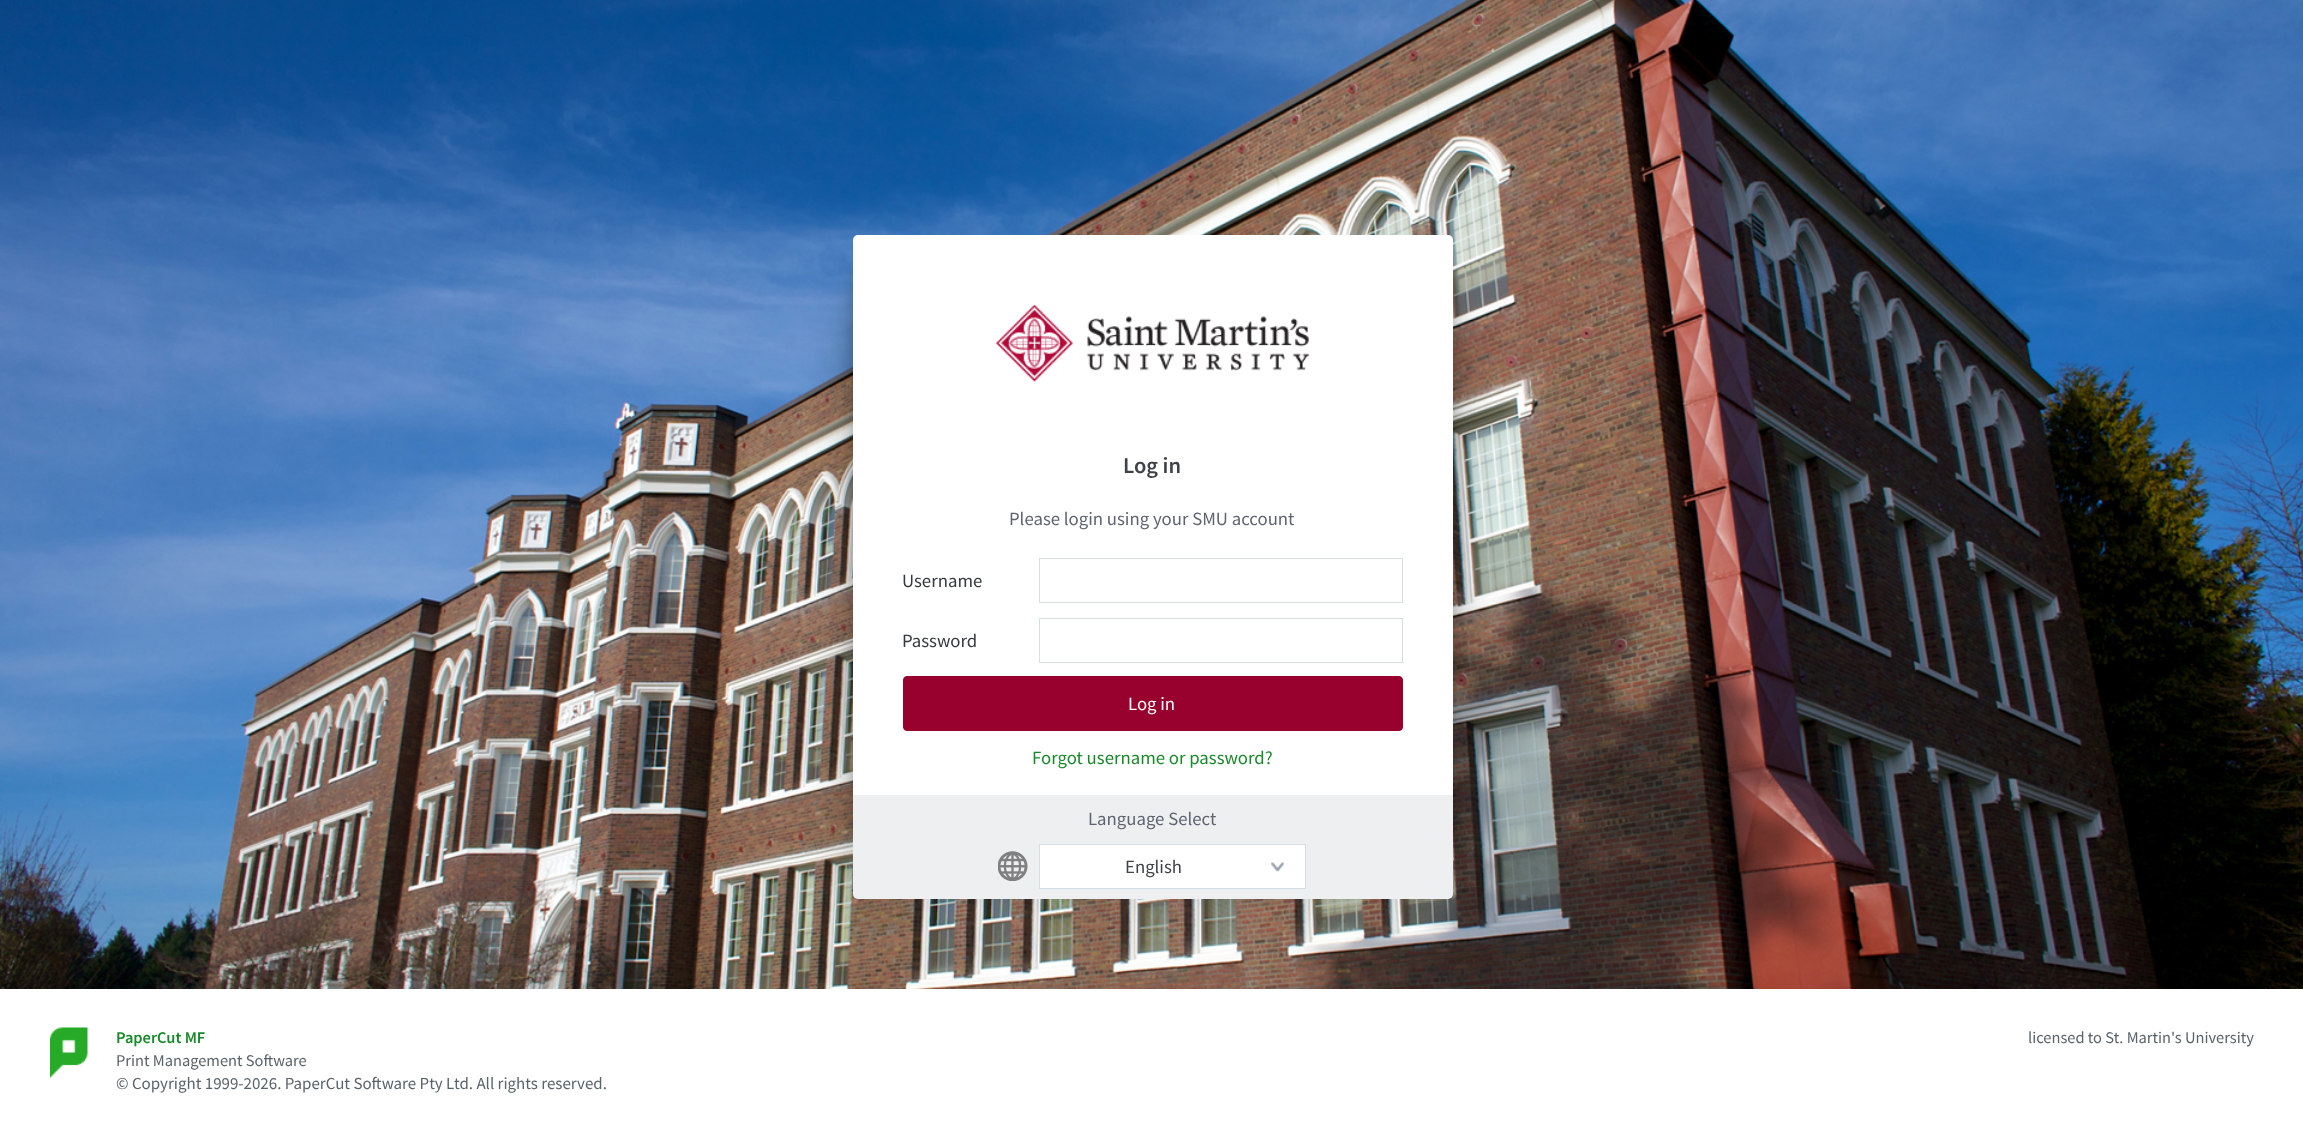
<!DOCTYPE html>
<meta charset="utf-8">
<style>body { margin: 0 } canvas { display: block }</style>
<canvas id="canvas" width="2303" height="1133"></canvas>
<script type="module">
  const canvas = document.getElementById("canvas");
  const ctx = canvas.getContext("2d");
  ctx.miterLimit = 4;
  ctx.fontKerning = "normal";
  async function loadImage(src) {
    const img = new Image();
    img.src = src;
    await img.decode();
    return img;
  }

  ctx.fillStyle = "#ffffff";
  ctx.fillRect(0, 0, 2303, 1133);
  ctx.drawImage(await loadImage("img1.png"), 0, 0, 2303, 989);
  ctx.fillStyle = "rgba(0, 0, 0, 0.22)";
  ctx.filter = "blur(7.5px)";
  ctx.beginPath();
  ctx.roundRect(853, 273, 600, 560, 5);
  ctx.fill();
  ctx.filter = "none";
  ctx.fillStyle = "rgba(0, 0, 0, 0.3)";
  ctx.filter = "blur(24px)";
  ctx.beginPath();
  ctx.roundRect(853, 310, 600, 560, 5);
  ctx.fill();
  ctx.filter = "none";
  ctx.fillStyle = "#ffffff";
  ctx.beginPath();
  ctx.roundRect(853, 235, 600, 560, [5, 5, 0, 0]);
  ctx.fill();
  ctx.drawImage(await loadImage("img2.png"), 996, 304, 313, 78);
  ctx.font = "600 22.5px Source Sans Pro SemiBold";
  ctx.fillStyle = "#3f4246";
  ctx.fillText("Log in", 1123, 473);
  ctx.font = "18.75px Source Sans Pro";
  ctx.fillStyle = "#5f6470";
  ctx.fillText("Please login using your SMU account", 1009, 525);
  ctx.fillStyle = "#343a40";
  ctx.fillText("Username", 902, 587);
  ctx.strokeStyle = "#d7dee3";
  ctx.strokeRect(1039.5, 558.5, 363, 44);
  ctx.fillText("Password", 902, 647);
  ctx.strokeRect(1039.5, 618.5, 363, 44);
  ctx.fillStyle = "#98002e";
  ctx.beginPath();
  ctx.roundRect(903.5, 676.5, 499, 54, 3.5);
  ctx.fill();
  ctx.strokeStyle = "#98002e";
  ctx.stroke();
  ctx.fillStyle = "#ffffff";
  ctx.fillText("Log in", 1128, 710);
  ctx.fillStyle = "#19892b";
  ctx.fillText("Forgot username or password?", 1032, 764);
  ctx.fillStyle = "#edeff1";
  ctx.beginPath();
  ctx.roundRect(853, 795, 600, 104, [0, 0, 5, 5]);
  ctx.fill();
  ctx.fillStyle = "#5f6470";
  ctx.fillText("Language Select", 1088, 825);
  ctx.drawImage(await loadImage("img3.png"), 998, 851, 30, 30);
  ctx.fillStyle = "#ffffff";
  ctx.fillRect(1040, 845, 265, 43);
  ctx.drawImage(await loadImage("img4.png"), 1271, 862, 13, 10);
  ctx.strokeStyle = "#d7dee3";
  ctx.strokeRect(1039.5, 844.5, 266, 44);
  ctx.fillStyle = "#3f4246";
  ctx.fillText("English", 1125, 873);
  ctx.drawImage(await loadImage("img5.png"), 50, 1027, 38, 51);
  ctx.font = "600 16.4px Source Sans Pro SemiBold";
  ctx.fillStyle = "#19892b";
  ctx.fillText("PaperCut MF", 116, 1043);
  ctx.font = "16.4px Source Sans Pro";
  ctx.fillStyle = "#5b636a";
  ctx.fillText("licensed to St. Martin's University", 2028, 1043);
  ctx.fillText("Print Management Software", 116, 1066);
  ctx.font = "16.9px Source Sans Pro";
  ctx.fillText("© Copyright 1999-2026. PaperCut Software Pty Ltd. All rights reserved.", 116, 1089);
</script>
